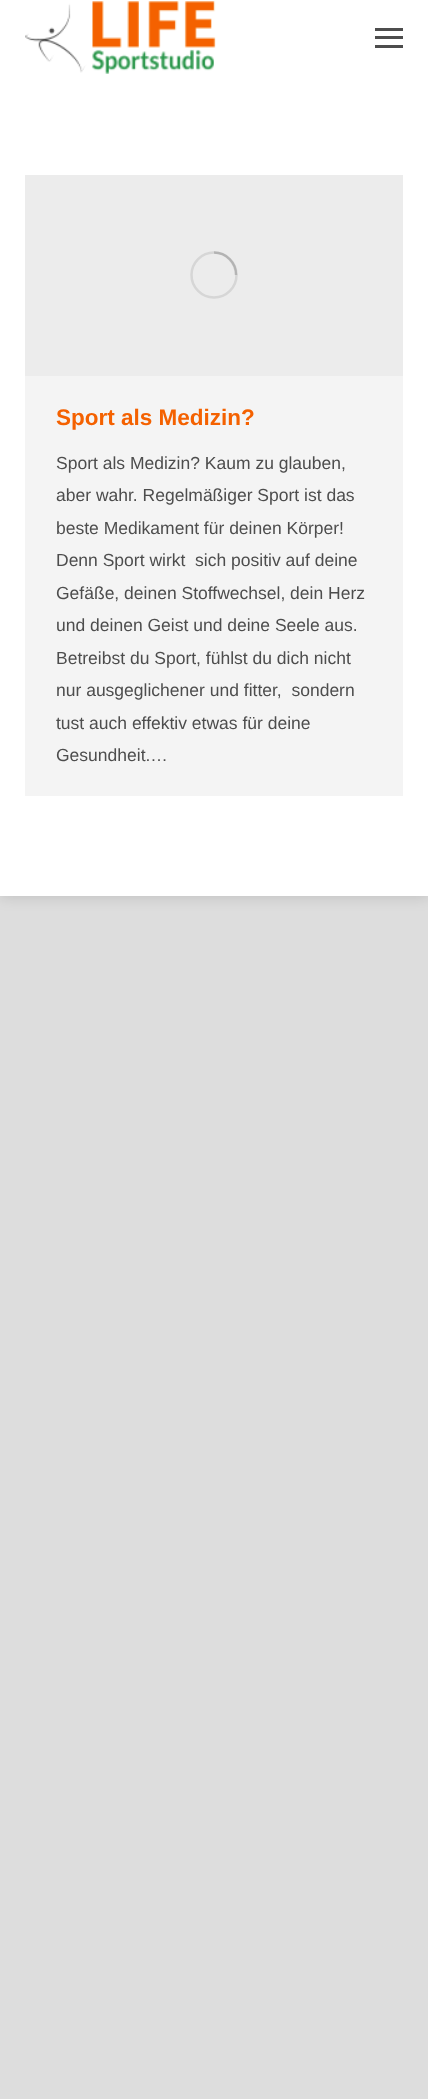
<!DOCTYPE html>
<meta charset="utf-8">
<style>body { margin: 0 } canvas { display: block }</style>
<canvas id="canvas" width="428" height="2099"></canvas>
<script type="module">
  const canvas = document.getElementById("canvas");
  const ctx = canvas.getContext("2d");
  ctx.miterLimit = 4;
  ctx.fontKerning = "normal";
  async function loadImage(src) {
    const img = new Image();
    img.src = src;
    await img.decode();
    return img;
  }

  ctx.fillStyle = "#dddddd";
  ctx.fillRect(0, 0, 428, 2099);
  ctx.fillStyle = "rgba(0, 0, 0, 0.15)";
  ctx.filter = "blur(7.5px)";
  ctx.beginPath();
  ctx.rect(0, 0, 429, 896);
  ctx.fill();
  ctx.filter = "none";
  ctx.fillStyle = "#ffffff";
  ctx.fillRect(0, 0, 428, 896);
  ctx.drawImage(await loadImage("img1.png"), 25, 1, 191, 73);
  ctx.fillStyle = "#4d4d4d";
  ctx.fillRect(375, 28, 28, 3);
  ctx.fillRect(375, 36, 28, 3);
  ctx.fillRect(375, 45, 28, 3);
  ctx.fillStyle = "#f4f4f4";
  ctx.fillRect(25, 376, 378, 420);
  ctx.fillStyle = "#ececec";
  ctx.fillRect(25, 175, 378, 201);
  ctx.beginPath();
  ctx.arc(214, 275, 22.5, 0, Math.PI * 2);
  ctx.strokeStyle = "#d6d6d6";
  ctx.lineWidth = 2.5;
  ctx.stroke();
  ctx.beginPath();
  ctx.moveTo(236, 275);
  ctx.bezierCurveTo(236, 262.5, 226, 252.5, 214, 252.5);
  ctx.strokeStyle = "rgba(77, 77, 77, 0.25)";
  ctx.stroke();
  ctx.font = "bold 22.5px Liberation Sans";
  ctx.fillStyle = "#f46100";
  ctx.fillText("Sport als Medizin?", 56, 425);
  ctx.font = "17.5px Liberation Sans";
  ctx.fillStyle = "#4d4d4d";
  ctx.fillText("Sport als Medizin? Kaum zu glauben,", 56, 469);
  ctx.fillText("aber wahr. Regelmäßiger Sport ist das", 56, 501);
  ctx.fillText("beste Medikament für deinen Körper!", 56, 534);
  ctx.fillText("Denn Sport wirkt  sich positiv auf deine", 56, 566);
  ctx.fillText("Gefäße, deinen Stoffwechsel, dein Herz", 56, 599);
  ctx.fillText("und deinen Geist und deine Seele aus.", 56, 631);
  ctx.fillText("Betreibst du Sport, fühlst du dich nicht", 56, 664);
  ctx.fillText("nur ausgeglichener und fitter,  sondern", 56, 696);
  ctx.fillText("tust auch effektiv etwas für deine", 56, 729);
  ctx.fillText("Gesundheit.…", 56, 761);
</script>
